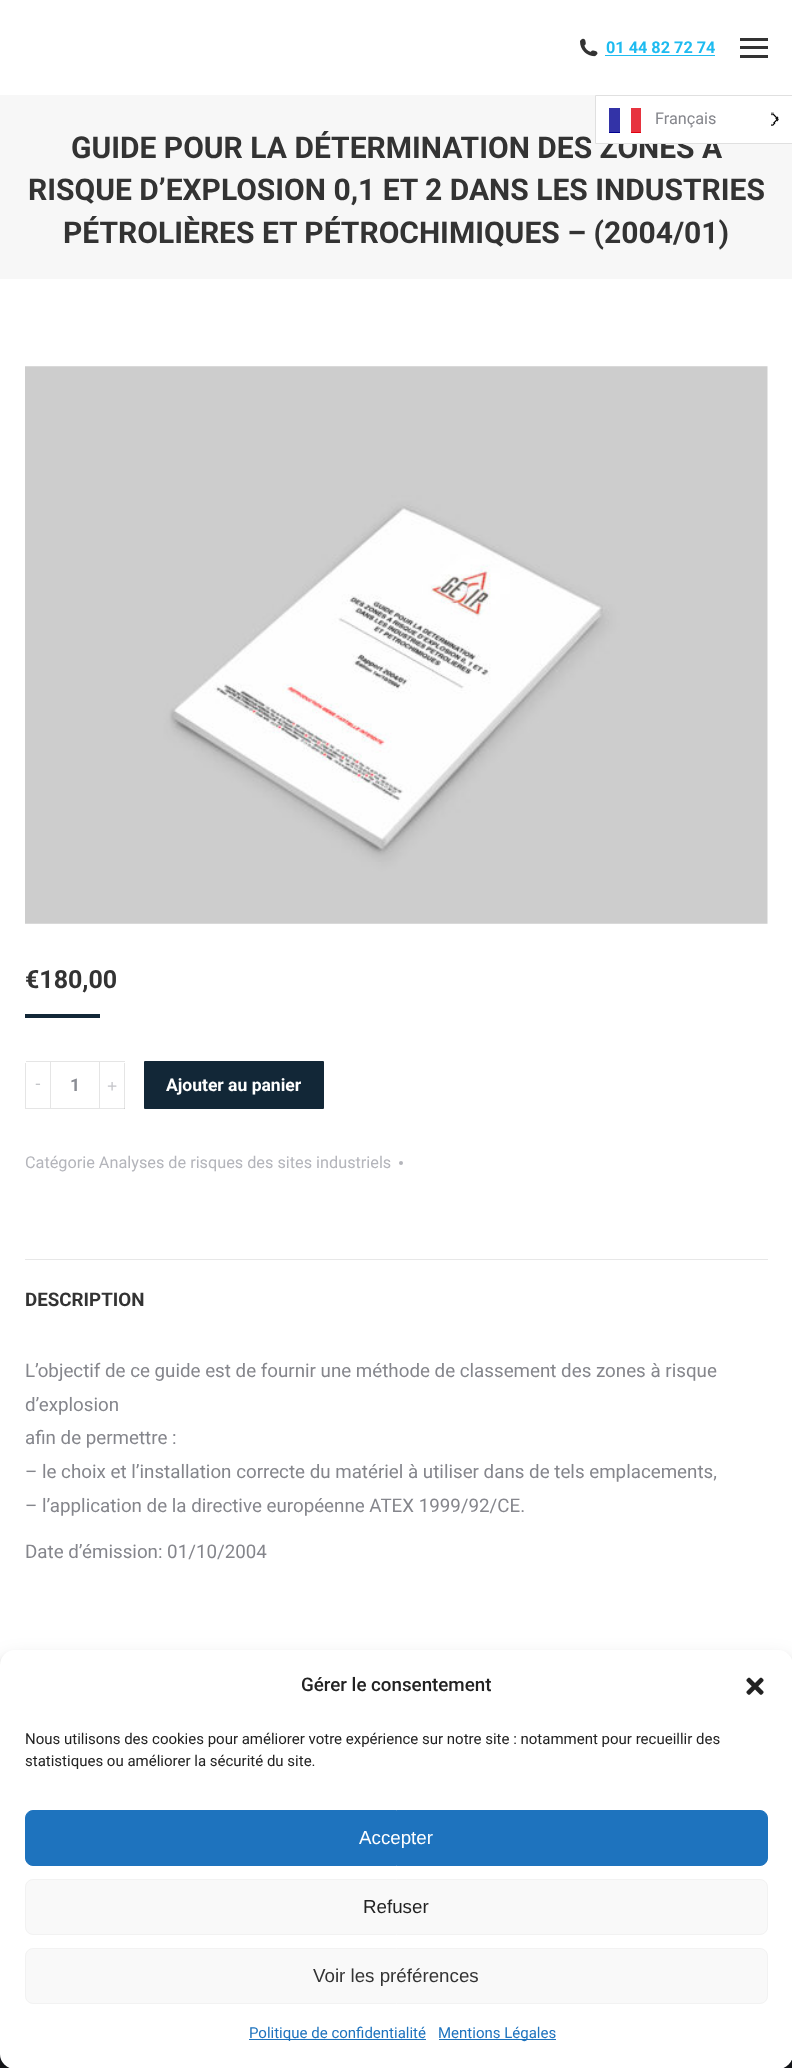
<!DOCTYPE html>
<meta charset="utf-8">
<style>body { margin: 0 } canvas { display: block }</style>
<canvas id="canvas" width="792" height="2068"></canvas>
<script type="module">
  const canvas = document.getElementById("canvas");
  const ctx = canvas.getContext("2d");
  ctx.miterLimit = 4;
  ctx.fontKerning = "normal";
  async function loadImage(src) {
    const img = new Image();
    img.src = src;
    await img.decode();
    return img;
  }

  ctx.fillStyle = "#ffffff";
  ctx.fillRect(0, 0, 792, 2068);
  ctx.drawImage(await loadImage("img1.png"), 580, 38, 18, 19);
  ctx.font = "bold 16.25px Roboto";
  ctx.fillStyle = "#1ebbf0";
  ctx.fillText("01 44 82 72 74", 606, 53);
  ctx.fillRect(605, 55, 110, 1);
  ctx.fillStyle = "#333333";
  ctx.fillRect(740, 46, 28, 3);
  ctx.fillRect(740, 38, 28, 3);
  ctx.fillRect(740, 55, 28, 3);
  ctx.fillStyle = "#f7f7f7";
  ctx.fillRect(0, 95, 792, 184);
  ctx.font = "bold 30px Roboto";
  ctx.fillStyle = "#333333";
  ctx.fillText("GUIDE POUR LA DÉTERMINATION DES ZONES A", 71, 158);
  ctx.fillText("RISQUE D’EXPLOSION 0,1 ET 2 DANS LES INDUSTRIES", 28, 200);
  ctx.fillText("PÉTROLIÈRES ET PÉTROCHIMIQUES – (2004/01)", 63, 243);
  ctx.drawImage(await loadImage("img2.png"), 25, 366, 743, 558);
  ctx.font = "bold 25px Roboto";
  ctx.fillText("€180,00", 25, 988);
  ctx.fillStyle = "#122737";
  ctx.fillRect(25, 1014, 75, 4);
  ctx.fillStyle = "#e5e5e5";
  ctx.fillRect(26, 1061, 24, 1);
  ctx.fillRect(26, 1108, 24, 1);
  ctx.fillRect(25, 1063, 1, 46);
  ctx.font = "17.5px Liberation Sans";
  ctx.fillStyle = "#c4c5c9";
  ctx.fillText("-", 35, 1089);
  ctx.strokeStyle = "#e5e5e5";
  ctx.strokeRect(50.5, 1061.5, 49, 47);
  ctx.font = "bold 17.5px Roboto";
  ctx.fillStyle = "#8b8d94";
  ctx.fillText("1", 70, 1091);
  ctx.fillStyle = "#e5e5e5";
  ctx.fillRect(100, 1061, 25, 1);
  ctx.fillRect(124, 1063, 1, 46);
  ctx.fillStyle = "rgba(51, 51, 51, 0.12)";
  ctx.fillRect(100, 1108, 25, 1);
  ctx.font = "17.5px Liberation Sans";
  ctx.fillStyle = "#c4c5c9";
  ctx.fillText("+", 107, 1092);
  ctx.fillStyle = "#122737";
  ctx.beginPath();
  ctx.roundRect(144, 1061, 180, 48, 1);
  ctx.fill();
  ctx.font = "bold 17.5px Roboto";
  ctx.fillStyle = "#ffffff";
  ctx.fillText("Ajouter au panier", 166, 1091);
  ctx.font = "16.25px Roboto";
  ctx.fillStyle = "#b4b5bb";
  ctx.fillText("Catégorie Analyses de risques des sites industriels", 25, 1168);
  ctx.beginPath();
  ctx.arc(401, 1163, 2, 0, Math.PI * 2);
  ctx.fill();
  ctx.fillStyle = "#e7e7e7";
  ctx.fillRect(25, 1259, 743, 1);
  ctx.font = "bold 18.75px Roboto";
  ctx.fillStyle = "#333333";
  ctx.fillText("DESCRIPTION", 25, 1306);
  ctx.font = "18.75px Roboto";
  ctx.fillStyle = "#85868c";
  ctx.fillText("L’objectif de ce guide est de fournir une méthode de classement des zones à risque", 25, 1377);
  ctx.fillText("d’explosion", 25, 1411);
  ctx.fillText("afin de permettre :", 25, 1444);
  ctx.fillText("– le choix et l’installation correcte du matériel à utiliser dans de tels emplacements,", 25, 1478);
  ctx.fillText("– l’application de la directive européenne ATEX 1999/92/CE.", 25, 1512);
  ctx.fillText("Date d’émission: 01/10/2004", 25, 1558);
  ctx.fillStyle = "#1a1c20";
  ctx.fillRect(0, 2054, 792, 14);
  ctx.fillStyle = "#ffffff";
  ctx.beginPath();
  ctx.rect(595.5, 95.5, 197, 48);
  ctx.fill();
  ctx.strokeStyle = "#e0e0e0";
  ctx.stroke();
  ctx.fillStyle = "#000091";
  ctx.fillRect(609, 108, 11, 25);
  ctx.fillStyle = "#e1000f";
  ctx.fillRect(631, 108, 10, 25);
  ctx.fillStyle = "rgba(255, 255, 255, 0.2)";
  ctx.fillRect(609, 108, 32, 24);
  ctx.font = "16.25px Roboto";
  ctx.fillStyle = "#85868c";
  ctx.fillText("Français", 655, 124);
  ctx.drawImage(await loadImage("img3.png"), 771, 112, 8, 14);
  ctx.fillStyle = "rgba(0, 0, 0, 0.23)";
  ctx.filter = "blur(4px)";
  ctx.beginPath();
  ctx.roundRect(0, 1658, 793, 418, 15);
  ctx.fill();
  ctx.filter = "none";
  ctx.fillStyle = "rgba(0, 0, 0, 0.19)";
  ctx.filter = "blur(12.5px)";
  ctx.beginPath();
  ctx.roundRect(0, 1663, 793, 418, 15);
  ctx.fill();
  ctx.filter = "none";
  ctx.fillStyle = "#ffffff";
  ctx.beginPath();
  ctx.roundRect(0, 1650, 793, 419, 15);
  ctx.fill();
  ctx.font = "500 18.75px Roboto";
  ctx.fillStyle = "#222222";
  ctx.fillText("Gérer le consentement", 301, 1691);
  ctx.drawImage(await loadImage("img4.png"), 746, 1677, 18, 18);
  ctx.font = "15px Roboto";
  ctx.fillText("Nous utilisons des cookies pour améliorer votre expérience sur notre site : notamment pour recueillir des", 25, 1744);
  ctx.fillText("statistiques ou améliorer la sécurité du site.", 25, 1766);
  ctx.fillStyle = "#1e73be";
  ctx.beginPath();
  ctx.roundRect(25.5, 1810.5, 742, 55, 7.5);
  ctx.fill();
  ctx.strokeStyle = "#1e73be";
  ctx.stroke();
  ctx.font = "18.75px Liberation Sans";
  ctx.fillStyle = "#ffffff";
  ctx.fillText("Accepter", 359, 1844);
  ctx.fillStyle = "#f9f9f9";
  ctx.beginPath();
  ctx.roundRect(25.5, 1879.5, 742, 55, 7.5);
  ctx.fill();
  ctx.strokeStyle = "#f2f2f2";
  ctx.stroke();
  ctx.fillStyle = "#222222";
  ctx.fillText("Refuser", 363, 1913);
  ctx.fillStyle = "#f9f9f9";
  ctx.beginPath();
  ctx.roundRect(25.5, 1948.5, 742, 55, 7.5);
  ctx.fill();
  ctx.stroke();
  ctx.fillStyle = "#333333";
  ctx.fillText("Voir les préférences", 313, 1982);
  ctx.fillStyle = "#1e73be";
  ctx.fillRect(249, 2039, 177, 1);
  ctx.font = "15px Roboto";
  ctx.fillText("Politique de confidentialité", 249, 2038);
  ctx.fillRect(439, 2039, 117, 1);
  ctx.fillText("Mentions Légales", 438, 2038);
</script>
